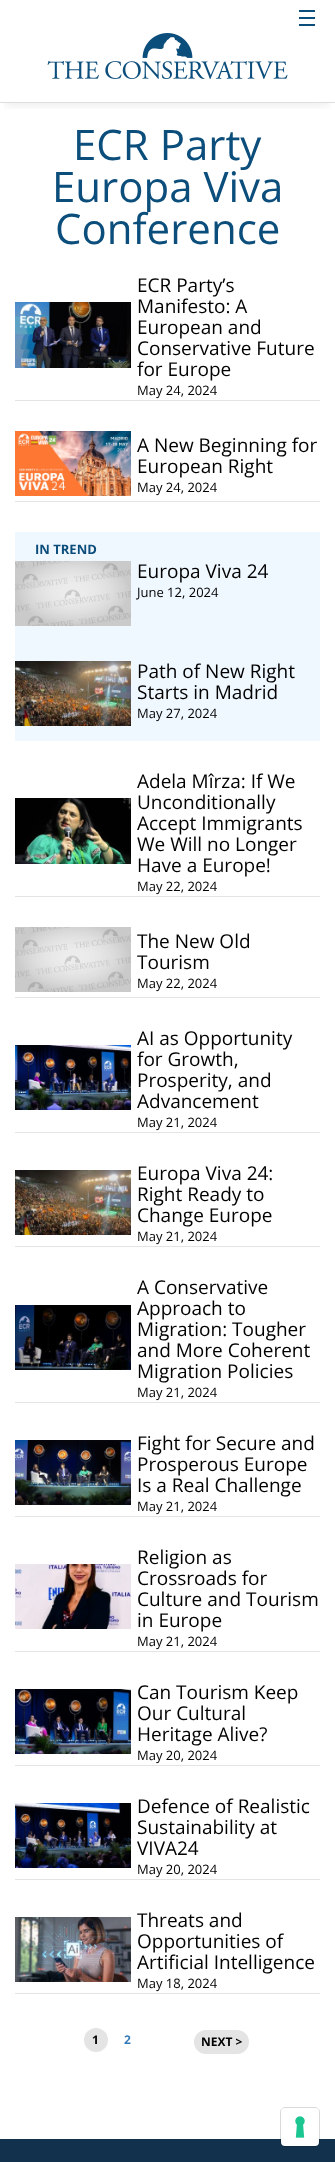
<!DOCTYPE html>
<meta charset="utf-8">
<style>body { margin: 0 } canvas { display: block }</style>
<canvas id="canvas" width="335" height="2162"></canvas>
<script type="module">
  const canvas = document.getElementById("canvas");
  const ctx = canvas.getContext("2d");
  ctx.miterLimit = 4;
  ctx.fontKerning = "normal";
  async function loadImage(src) {
    const img = new Image();
    img.src = src;
    await img.decode();
    return img;
  }

  ctx.fillStyle = "#ffffff";
  ctx.fillRect(0, 0, 335, 2162);
  ctx.save();
  ctx.beginPath();
  ctx.rect(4, 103, 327, 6);
  ctx.clip();
  ctx.fillStyle = "rgba(0, 0, 0, 0.08)";
  ctx.filter = "blur(6px)";
  ctx.beginPath();
  ctx.rect(5, 12, 325, 93);
  ctx.fill();
  ctx.filter = "none";
  ctx.restore();
  ctx.fillStyle = "#dedede";
  ctx.fillRect(0, 102, 335, 1);
  ctx.fillStyle = "#0b4d7b";
  ctx.fillRect(299, 10, 16, 2);
  ctx.fillRect(299, 17, 16, 2);
  ctx.fillRect(299, 24, 16, 2);
  ctx.drawImage(await loadImage("img1.png"), 47, 33, 241, 46);
  ctx.font = "42px Open Sans";
  ctx.fillText("ECR Party", 73, 160);
  ctx.fillText("Europa Viva", 52, 202);
  ctx.fillText("Conference", 55, 244);
  ctx.fillStyle = "#e5e4e4";
  ctx.fillRect(15, 400, 305, 1);
  ctx.drawImage(await loadImage("img2.png"), 15, 302, 116, 66);
  ctx.font = "19px Open Sans";
  ctx.fillStyle = "#000000";
  ctx.fillText("ECR Party’s", 137, 292);
  ctx.fillText("Manifesto: A", 137, 313);
  ctx.fillText("European and", 137, 334);
  ctx.fillText("Conservative Future", 137, 355);
  ctx.fillText("for Europe", 137, 376);
  ctx.font = "13px Open Sans";
  ctx.fillText("May 24, 2024", 137, 395);
  ctx.fillStyle = "#e5e4e4";
  ctx.fillRect(15, 501, 305, 1);
  ctx.drawImage(await loadImage("img3.png"), 15, 431, 116, 65);
  ctx.font = "19px Open Sans";
  ctx.fillStyle = "#000000";
  ctx.fillText("A New Beginning for", 137, 452);
  ctx.fillText("European Right", 137, 473);
  ctx.font = "13px Open Sans";
  ctx.fillText("May 24, 2024", 137, 492);
  ctx.fillStyle = "#f0f8ff";
  ctx.fillRect(15, 532, 305, 209);
  ctx.font = "bold 13px Open Sans";
  ctx.fillStyle = "#0b4d7b";
  ctx.fillText("IN TREND", 35, 554);
  ctx.drawImage(await loadImage("img4.png"), 15, 561, 116, 65);
  ctx.font = "19px Open Sans";
  ctx.fillStyle = "#000000";
  ctx.fillText("Europa Viva 24", 137, 578);
  ctx.font = "13px Open Sans";
  ctx.fillText("June 12, 2024", 137, 597);
  ctx.drawImage(await loadImage("img5.png"), 15, 661, 116, 65);
  ctx.font = "19px Open Sans";
  ctx.fillText("Path of New Right", 137, 678);
  ctx.fillText("Starts in Madrid", 137, 699);
  ctx.font = "13px Open Sans";
  ctx.fillText("May 27, 2024", 137, 718);
  ctx.fillStyle = "#e5e4e4";
  ctx.fillRect(15, 896, 305, 1);
  ctx.drawImage(await loadImage("img6.png"), 15, 798, 116, 66);
  ctx.font = "19px Open Sans";
  ctx.fillStyle = "#000000";
  ctx.fillText("Adela Mîrza: If We", 137, 788);
  ctx.fillText("Unconditionally", 137, 809);
  ctx.fillText("Accept Immigrants", 137, 830);
  ctx.fillText("We Will no Longer", 137, 851);
  ctx.fillText("Have a Europe!", 137, 872);
  ctx.font = "13px Open Sans";
  ctx.fillText("May 22, 2024", 137, 891);
  ctx.fillStyle = "#e5e4e4";
  ctx.fillRect(15, 997, 305, 1);
  ctx.drawImage(await loadImage("img4.png"), 15, 927, 116, 65);
  ctx.font = "19px Open Sans";
  ctx.fillStyle = "#000000";
  ctx.fillText("The New Old", 137, 948);
  ctx.fillText("Tourism", 137, 969);
  ctx.font = "13px Open Sans";
  ctx.fillText("May 22, 2024", 137, 988);
  ctx.fillStyle = "#e5e4e4";
  ctx.fillRect(15, 1132, 305, 1);
  ctx.drawImage(await loadImage("img7.png"), 15, 1045, 116, 65);
  ctx.font = "19px Open Sans";
  ctx.fillStyle = "#000000";
  ctx.fillText("AI as Opportunity", 137, 1045);
  ctx.fillText("for Growth,", 137, 1066);
  ctx.fillText("Prosperity, and", 137, 1087);
  ctx.fillText("Advancement", 137, 1108);
  ctx.font = "13px Open Sans";
  ctx.fillText("May 21, 2024", 137, 1127);
  ctx.fillStyle = "#e5e4e4";
  ctx.fillRect(15, 1246, 305, 1);
  ctx.drawImage(await loadImage("img8.png"), 15, 1170, 116, 65);
  ctx.font = "19px Open Sans";
  ctx.fillStyle = "#000000";
  ctx.fillText("Europa Viva 24:", 137, 1180);
  ctx.fillText("Right Ready to", 137, 1201);
  ctx.fillText("Change Europe", 137, 1222);
  ctx.font = "13px Open Sans";
  ctx.fillText("May 21, 2024", 137, 1241);
  ctx.fillStyle = "#e5e4e4";
  ctx.fillRect(15, 1402, 305, 1);
  ctx.drawImage(await loadImage("img9.png"), 15, 1305, 116, 65);
  ctx.font = "19px Open Sans";
  ctx.fillStyle = "#000000";
  ctx.fillText("A Conservative", 137, 1294);
  ctx.fillText("Approach to", 137, 1315);
  ctx.fillText("Migration: Tougher", 137, 1336);
  ctx.fillText("and More Coherent", 137, 1357);
  ctx.fillText("Migration Policies", 137, 1378);
  ctx.font = "13px Open Sans";
  ctx.fillText("May 21, 2024", 137, 1397);
  ctx.fillStyle = "#e5e4e4";
  ctx.fillRect(15, 1516, 305, 1);
  ctx.drawImage(await loadImage("img10.png"), 15, 1440, 116, 65);
  ctx.font = "19px Open Sans";
  ctx.fillStyle = "#000000";
  ctx.fillText("Fight for Secure and", 137, 1450);
  ctx.fillText("Prosperous Europe", 137, 1471);
  ctx.fillText("Is a Real Challenge", 137, 1492);
  ctx.font = "13px Open Sans";
  ctx.fillText("May 21, 2024", 137, 1511);
  ctx.fillStyle = "#e5e4e4";
  ctx.fillRect(15, 1651, 305, 1);
  ctx.drawImage(await loadImage("img11.png"), 15, 1564, 116, 65);
  ctx.font = "19px Open Sans";
  ctx.fillStyle = "#000000";
  ctx.fillText("Religion as", 137, 1564);
  ctx.fillText("Crossroads for", 137, 1585);
  ctx.fillText("Culture and Tourism", 137, 1606);
  ctx.fillText("in Europe", 137, 1627);
  ctx.font = "13px Open Sans";
  ctx.fillText("May 21, 2024", 137, 1646);
  ctx.fillStyle = "#e5e4e4";
  ctx.fillRect(15, 1765, 305, 1);
  ctx.drawImage(await loadImage("img12.png"), 15, 1689, 116, 65);
  ctx.font = "19px Open Sans";
  ctx.fillStyle = "#000000";
  ctx.fillText("Can Tourism Keep", 137, 1699);
  ctx.fillText("Our Cultural", 137, 1720);
  ctx.fillText("Heritage Alive?", 137, 1741);
  ctx.font = "13px Open Sans";
  ctx.fillText("May 20, 2024", 137, 1760);
  ctx.fillStyle = "#e5e4e4";
  ctx.fillRect(15, 1879, 305, 1);
  ctx.drawImage(await loadImage("img13.png"), 15, 1803, 116, 65);
  ctx.font = "19px Open Sans";
  ctx.fillStyle = "#000000";
  ctx.fillText("Defence of Realistic", 137, 1813);
  ctx.fillText("Sustainability at", 137, 1834);
  ctx.fillText("VIVA24", 137, 1855);
  ctx.font = "13px Open Sans";
  ctx.fillText("May 20, 2024", 137, 1874);
  ctx.fillStyle = "#e5e4e4";
  ctx.fillRect(15, 1993, 305, 1);
  ctx.drawImage(await loadImage("img14.png"), 15, 1917, 116, 65);
  ctx.font = "19px Open Sans";
  ctx.fillStyle = "#000000";
  ctx.fillText("Threats and", 137, 1927);
  ctx.fillText("Opportunities of", 137, 1948);
  ctx.fillText("Artificial Intelligence", 137, 1969);
  ctx.font = "13px Open Sans";
  ctx.fillText("May 18, 2024", 137, 1988);
  ctx.fillStyle = "#e5e4e4";
  ctx.beginPath();
  ctx.arc(96, 2040, 12, 0, Math.PI * 2);
  ctx.fill();
  ctx.font = "bold 12px Open Sans";
  ctx.fillStyle = "#000000";
  ctx.fillText("1", 92, 2044);
  ctx.fillStyle = "#337ab7";
  ctx.fillText("2", 124, 2044);
  ctx.fillStyle = "#e5e4e4";
  ctx.beginPath();
  ctx.roundRect(194, 2030, 55, 24, 12);
  ctx.fill();
  ctx.fillStyle = "#000000";
  ctx.fillText("NEXT >", 201, 2046);
  ctx.fillStyle = "#12314d";
  ctx.fillRect(0, 2139, 335, 23);
  ctx.beginPath();
  ctx.roundRect(280.5, 2107.5, 39, 39, 4.5);
  ctx.strokeStyle = "rgba(0, 0, 0, 0.15)";
  ctx.stroke();
  ctx.fillStyle = "#ffffff";
  ctx.beginPath();
  ctx.roundRect(281, 2108, 38, 38, 4);
  ctx.fill();
  ctx.drawImage(await loadImage("img15.png"), 295, 2116, 10, 22);
</script>
